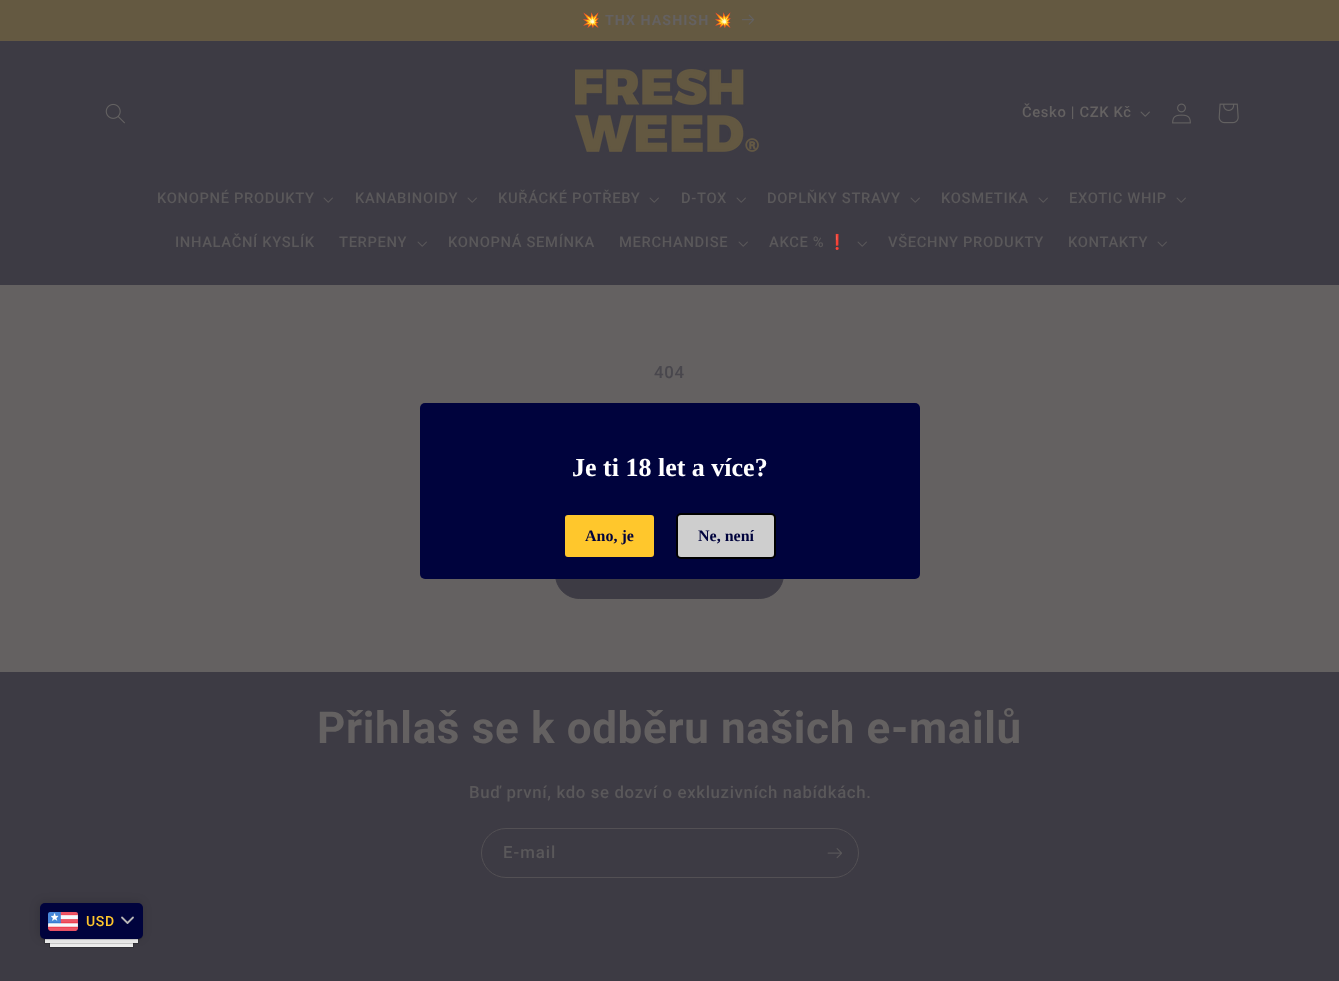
<!DOCTYPE html>
<meta charset="utf-8">
<style>body { margin: 0 } canvas { display: block }</style>
<canvas id="canvas" width="1339" height="981"></canvas>
<script type="module">
  const canvas = document.getElementById("canvas");
  const ctx = canvas.getContext("2d");
  ctx.miterLimit = 4;
  ctx.fontKerning = "normal";
  async function loadImage(src) {
    const img = new Image();
    img.src = src;
    await img.decode();
    return img;
  }

  ctx.fillStyle = "#646161";
  ctx.fillRect(0, 0, 1339, 981);
  ctx.fillStyle = "#645941";
  ctx.fillRect(0, 0, 1339, 40);
  ctx.fillStyle = "#645944";
  ctx.fillRect(0, 40, 1339, 1);
  ctx.letterSpacing = "1px";
  ctx.font = "bold 14.25px Noto Color Emoji";
  ctx.fillStyle = "#646161";
  ctx.fillText("💥", 582, 25);
  ctx.font = "bold 14.25px Roboto";
  ctx.fillText("THX HASHISH", 605, 25);
  ctx.font = "bold 14.25px Noto Color Emoji";
  ctx.fillText("💥", 714, 25);
  ctx.drawImage(await loadImage("img1.png"), 742, 14, 13, 11);
  ctx.fillStyle = "#3d3b44";
  ctx.fillRect(0, 41, 1339, 244);
  ctx.drawImage(await loadImage("img2.png"), 105, 103, 20, 21);
  ctx.drawImage(await loadImage("img3.png"), 575, 69, 184, 83);
  ctx.letterSpacing = "0.65px";
  ctx.font = "500 14.75px Roboto";
  ctx.fillStyle = "#646161";
  ctx.fillText("Česko | CZK Kč", 1022, 117);
  ctx.drawImage(await loadImage("img4.png"), 1140, 111, 10, 6);
  ctx.drawImage(await loadImage("img5.png"), 1172, 103, 19, 21);
  ctx.drawImage(await loadImage("img6.png"), 1218, 103, 21, 21);
  ctx.fillStyle = "#5a585a";
  ctx.fillText("KONOPNÉ PRODUKTY", 157, 203);
  ctx.drawImage(await loadImage("img7.png"), 323, 197, 10, 6);
  ctx.fillText("KANABINOIDY", 355, 203);
  ctx.drawImage(await loadImage("img7.png"), 467, 197, 10, 6);
  ctx.fillText("KUŘÁCKÉ POTŘEBY", 498, 203);
  ctx.drawImage(await loadImage("img7.png"), 649, 197, 10, 6);
  ctx.fillText("D-TOX", 681, 203);
  ctx.drawImage(await loadImage("img7.png"), 736, 197, 10, 6);
  ctx.fillText("DOPLŇKY STRAVY", 767, 203);
  ctx.drawImage(await loadImage("img7.png"), 910, 197, 10, 6);
  ctx.fillText("KOSMETIKA", 941, 203);
  ctx.drawImage(await loadImage("img7.png"), 1038, 197, 10, 6);
  ctx.fillText("EXOTIC WHIP", 1069, 203);
  ctx.drawImage(await loadImage("img7.png"), 1176, 197, 10, 6);
  ctx.fillText("INHALAČNÍ KYSLÍK", 175, 247);
  ctx.fillText("TERPENY", 339, 247);
  ctx.drawImage(await loadImage("img7.png"), 417, 241, 10, 6);
  ctx.fillText("KONOPNÁ SEMÍNKA", 448, 247);
  ctx.fillText("MERCHANDISE", 619, 247);
  ctx.drawImage(await loadImage("img7.png"), 738, 241, 10, 6);
  ctx.fillText("AKCE %", 769, 247);
  ctx.font = "14.75px Noto Color Emoji";
  ctx.fillText("❗️", 828, 247);
  ctx.drawImage(await loadImage("img7.png"), 857, 241, 10, 6);
  ctx.font = "500 14.75px Roboto";
  ctx.fillText("VŠECHNY PRODUKTY", 888, 247);
  ctx.fillText("KONTAKTY", 1068, 247);
  ctx.drawImage(await loadImage("img7.png"), 1157, 241, 10, 6);
  ctx.font = "500 16.8px Roboto";
  ctx.fillStyle = "#49474d";
  ctx.fillText("404", 654, 378);
  ctx.fillStyle = "#3d3b44";
  ctx.beginPath();
  ctx.roundRect(555.5, 550.5, 228, 48, 24);
  ctx.fill();
  ctx.strokeStyle = "#3d3b44";
  ctx.stroke();
  ctx.fillStyle = "#00033d";
  ctx.beginPath();
  ctx.roundRect(420, 403, 500, 176, 5);
  ctx.fill();
  ctx.letterSpacing = "0px";
  ctx.font = "bold 26px Liberation Serif";
  ctx.fillStyle = "#ffffff";
  ctx.fillText("Je ti 18 let a více?", 572, 476);
  ctx.fillStyle = "#ffc72c";
  ctx.beginPath();
  ctx.roundRect(564, 514, 91, 44, 4);
  ctx.fill();
  ctx.strokeStyle = "#00033d";
  ctx.lineWidth = 2;
  ctx.stroke();
  ctx.font = "bold 16px Liberation Serif";
  ctx.fillStyle = "#00033d";
  ctx.fillText("Ano, je", 585, 541);
  ctx.fillStyle = "#cecece";
  ctx.beginPath();
  ctx.roundRect(677, 514, 98, 44, 4);
  ctx.fill();
  ctx.strokeStyle = "#000000";
  ctx.stroke();
  ctx.fillStyle = "#00033d";
  ctx.fillText("Ne, není", 698, 541);
  ctx.fillStyle = "#3d3b44";
  ctx.fillRect(0, 672, 1339, 309);
  ctx.letterSpacing = "0.65px";
  ctx.font = "bold 44px Roboto";
  ctx.fillStyle = "#646161";
  ctx.fillText("Přihlaš se k odběru našich e-mailů", 317, 743);
  ctx.font = "500 16.8px Roboto";
  ctx.fillStyle = "#5a585a";
  ctx.fillText("Buď první, kdo se dozví o exkluzivních nabídkách.", 469, 798);
  ctx.beginPath();
  ctx.roundRect(481.5, 828.5, 377, 49, 24.5);
  ctx.strokeStyle = "#535054";
  ctx.lineWidth = 1;
  ctx.stroke();
  ctx.letterSpacing = "1px";
  ctx.fillText("E-mail", 503, 858);
  ctx.drawImage(await loadImage("img8.png"), 827, 848, 15, 11);
  ctx.fillStyle = "rgba(0, 0, 0, 0.15)";
  ctx.filter = "blur(0.5px)";
  ctx.beginPath();
  ctx.rect(49, 930, 85, 18);
  ctx.fill();
  ctx.filter = "none";
  ctx.fillStyle = "#eeeeee";
  ctx.fillRect(50, 943, 83, 4);
  ctx.fillStyle = "rgba(0, 0, 0, 0.15)";
  ctx.filter = "blur(0.5px)";
  ctx.beginPath();
  ctx.roundRect(44, 916, 95, 28, 1);
  ctx.fill();
  ctx.filter = "none";
  ctx.fillStyle = "#eeeeee";
  ctx.fillRect(45, 939, 93, 4);
  ctx.fillStyle = "rgba(0, 0, 0, 0.15)";
  ctx.filter = "blur(0.5px)";
  ctx.beginPath();
  ctx.roundRect(40, 904, 103, 36, 5);
  ctx.fill();
  ctx.filter = "none";
  ctx.filter = "blur(5px)";
  ctx.beginPath();
  ctx.roundRect(39, 902, 103, 36, 5);
  ctx.fill();
  ctx.filter = "none";
  ctx.fillStyle = "#00033d";
  ctx.beginPath();
  ctx.roundRect(40, 903, 103, 36, 5);
  ctx.fill();
  ctx.drawImage(await loadImage("img9.png"), 48, 912, 30, 19);
  ctx.letterSpacing = "0.65px";
  ctx.font = "500 14px Roboto";
  ctx.fillStyle = "#ffc72c";
  ctx.fillText("USD", 86, 926);
  ctx.beginPath();
  ctx.moveTo(122, 917.5);
  ctx.lineTo(127.5, 923);
  ctx.lineTo(133, 917.5);
  ctx.strokeStyle = "#b7b7b7";
  ctx.lineWidth = 1.8;
  ctx.lineCap = "round";
  ctx.lineJoin = "round";
  ctx.stroke();
</script>
